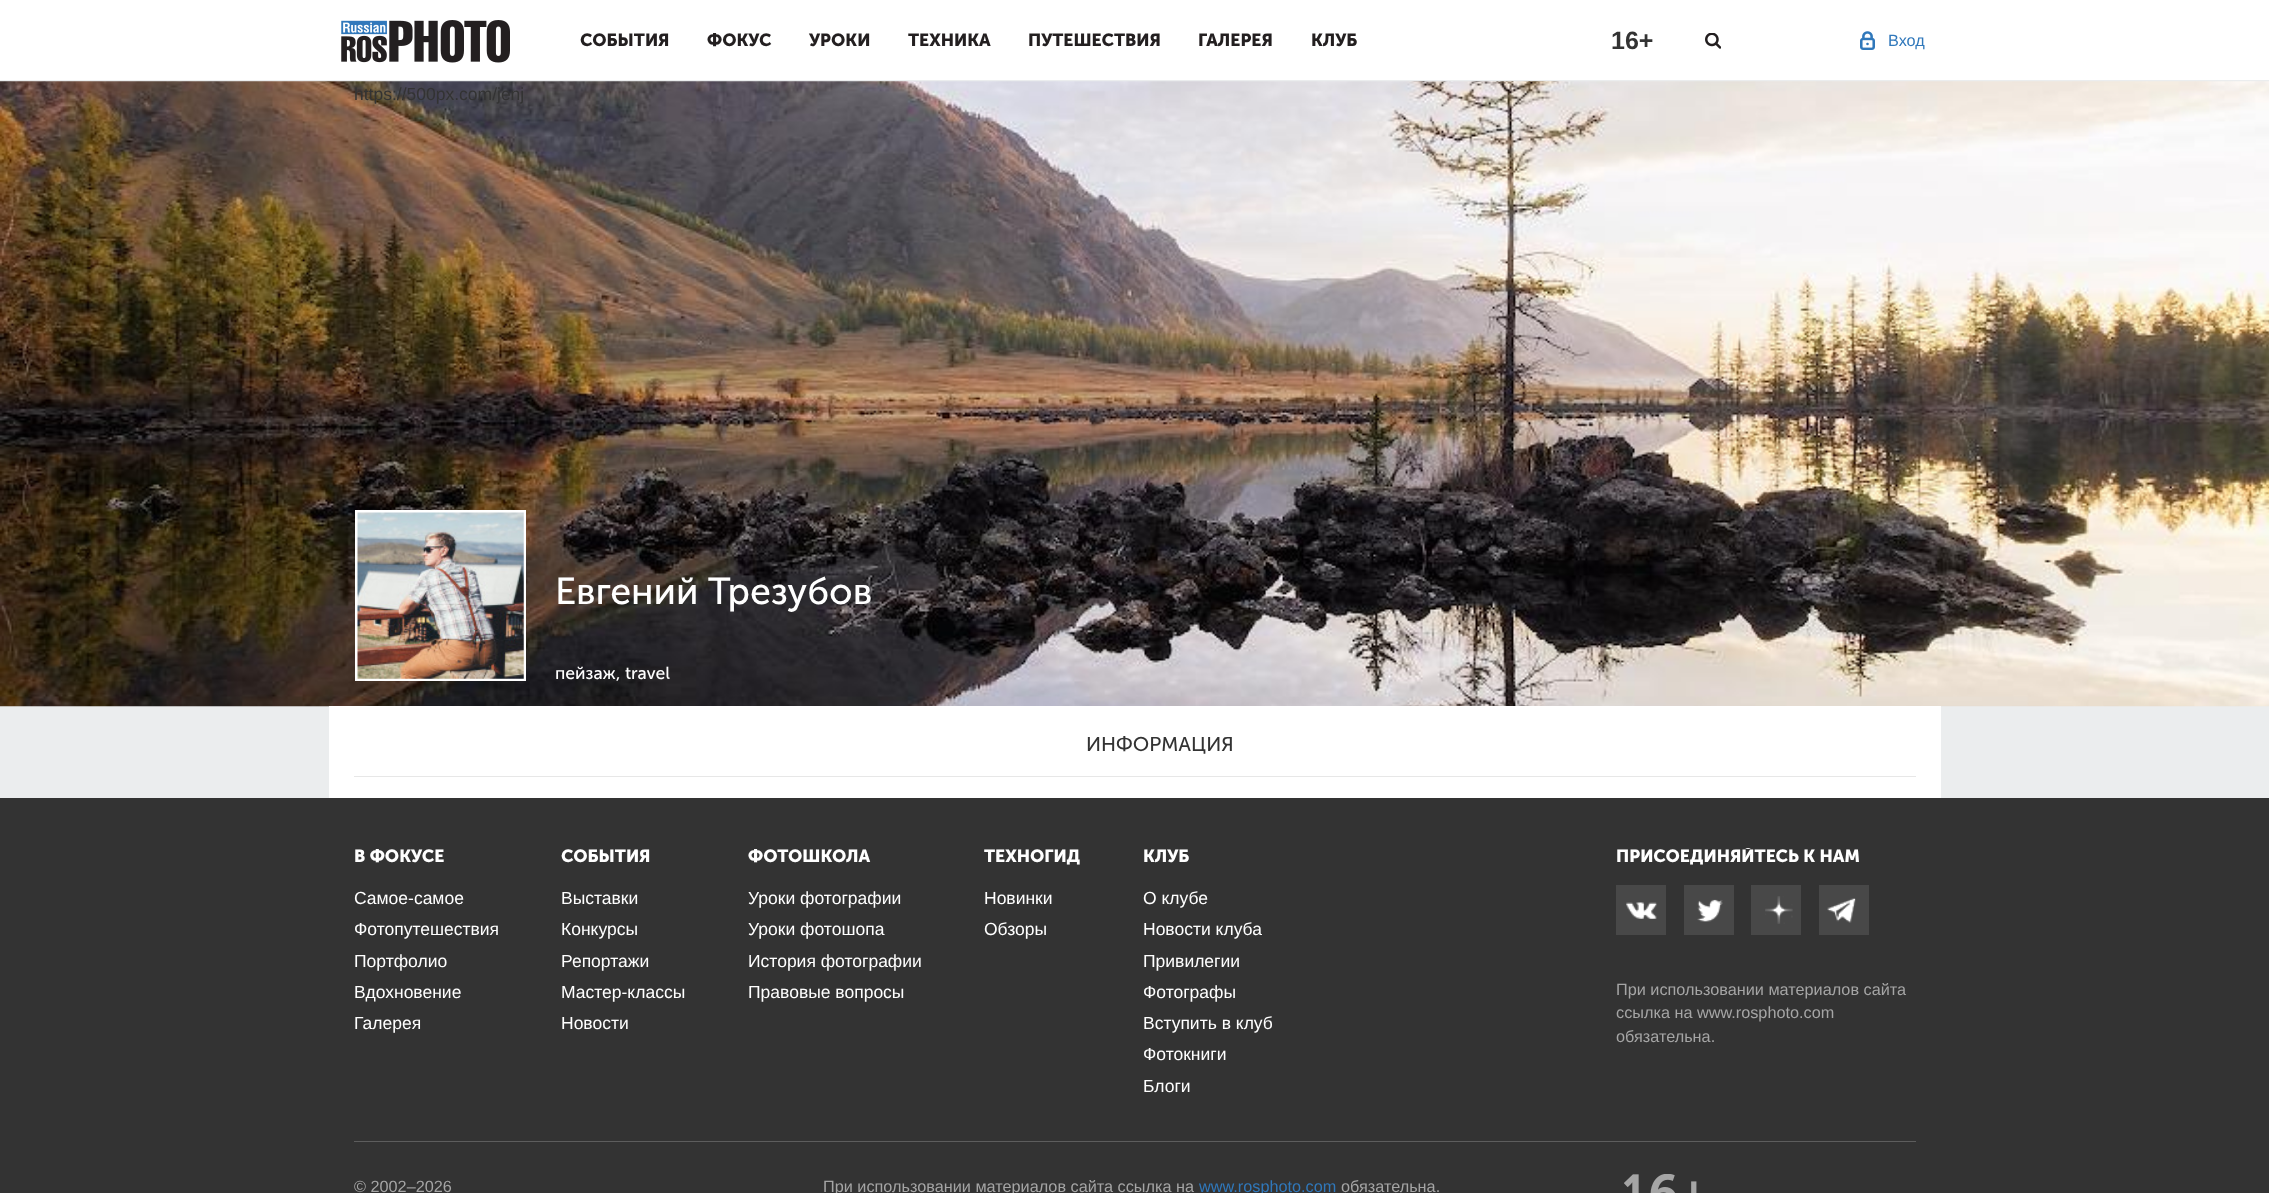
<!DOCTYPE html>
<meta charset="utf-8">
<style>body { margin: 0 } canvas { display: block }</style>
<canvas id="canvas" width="2269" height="1193"></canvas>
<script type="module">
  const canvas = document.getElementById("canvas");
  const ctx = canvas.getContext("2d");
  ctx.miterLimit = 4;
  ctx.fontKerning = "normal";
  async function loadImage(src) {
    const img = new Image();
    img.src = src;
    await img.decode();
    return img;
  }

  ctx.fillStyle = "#ebedee";
  ctx.fillRect(0, 0, 2269, 1193);
  ctx.fillStyle = "#ffffff";
  ctx.fillRect(0, 0, 2269, 80);
  ctx.drawImage(await loadImage("img1.png"), 341, 20, 169, 43);
  ctx.font = "bold 17.5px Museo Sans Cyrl";
  ctx.fillStyle = "#231f20";
  ctx.fillText("СОБЫТИЯ", 580, 46);
  ctx.fillText("ФОКУС", 707, 46);
  ctx.fillText("УРОКИ", 809, 46);
  ctx.fillText("ТЕХНИКА", 908, 46);
  ctx.fillText("ПУТЕШЕСТВИЯ", 1028, 46);
  ctx.fillText("ГАЛЕРЕЯ", 1198, 46);
  ctx.fillText("КЛУБ", 1311, 46);
  ctx.font = "bold 25px Liberation Sans";
  ctx.fillStyle = "#333333";
  ctx.fillText("16+", 1611, 49);
  ctx.drawImage(await loadImage("img2.png"), 1705, 33, 16, 16);
  ctx.drawImage(await loadImage("img3.png"), 1860, 31, 15, 19);
  ctx.font = "16.25px Liberation Sans";
  ctx.fillStyle = "#3078bb";
  ctx.fillText("Вход", 1888, 46);
  ctx.drawImage(await loadImage("img4.png"), 0, 81, 2269, 626);
  ctx.font = "17.5px Liberation Sans";
  ctx.fillStyle = "#333333";
  ctx.fillText("https://500px.com/jenj", 354, 100);
  ctx.strokeStyle = "#ffffff";
  ctx.lineWidth = 3;
  ctx.strokeRect(356.5, 511.5, 168, 168);
  ctx.drawImage(await loadImage("img5.png"), 357, 512, 167, 167);
  ctx.font = "37.5px Museo Sans Cyrl";
  ctx.fillStyle = "#ffffff";
  ctx.fillText("Евгений Трезубов", 555, 604);
  ctx.font = "17.5px Museo Sans Cyrl";
  ctx.fillText("пейзаж, travel", 555, 679);
  ctx.fillRect(329, 706, 1612, 92);
  ctx.fillStyle = "#e7e7e7";
  ctx.fillRect(354, 776, 1562, 1);
  ctx.font = "20px Museo Sans Cyrl";
  ctx.fillStyle = "#333333";
  ctx.fillText("ИНФОРМАЦИЯ", 1086, 751);
  ctx.fillRect(0, 798, 2269, 395);
  ctx.fillStyle = "#5d5d5d";
  ctx.fillRect(354, 1141, 1562, 1);
  ctx.font = "bold 17.5px Museo Sans Cyrl";
  ctx.fillStyle = "#ffffff";
  ctx.fillText("В ФОКУСЕ", 354, 862);
  ctx.font = "17.5px Liberation Sans";
  ctx.fillText("Самое-самое", 354, 904);
  ctx.fillText("Фотопутешествия", 354, 935);
  ctx.fillText("Портфолио", 354, 967);
  ctx.fillText("Вдохновение", 354, 998);
  ctx.fillText("Галерея", 354, 1029);
  ctx.font = "bold 17.5px Museo Sans Cyrl";
  ctx.fillText("СОБЫТИЯ", 561, 862);
  ctx.font = "17.5px Liberation Sans";
  ctx.fillText("Выставки", 561, 904);
  ctx.fillText("Конкурсы", 561, 935);
  ctx.fillText("Репортажи", 561, 967);
  ctx.fillText("Мастер-классы", 561, 998);
  ctx.fillText("Новости", 561, 1029);
  ctx.font = "bold 17.5px Museo Sans Cyrl";
  ctx.fillText("ФОТОШКОЛА", 748, 862);
  ctx.font = "17.5px Liberation Sans";
  ctx.fillText("Уроки фотографии", 748, 904);
  ctx.fillText("Уроки фотошопа", 748, 935);
  ctx.fillText("История фотографии", 748, 967);
  ctx.fillText("Правовые вопросы", 748, 998);
  ctx.font = "bold 17.5px Museo Sans Cyrl";
  ctx.fillText("ТЕХНОГИД", 984, 862);
  ctx.font = "17.5px Liberation Sans";
  ctx.fillText("Новинки", 984, 904);
  ctx.fillText("Обзоры", 984, 935);
  ctx.font = "bold 17.5px Museo Sans Cyrl";
  ctx.fillText("КЛУБ", 1143, 862);
  ctx.font = "17.5px Liberation Sans";
  ctx.fillText("О клубе", 1143, 904);
  ctx.fillText("Новости клуба", 1143, 935);
  ctx.fillText("Привилегии", 1143, 967);
  ctx.fillText("Фотографы", 1143, 998);
  ctx.fillText("Вступить в клуб", 1143, 1029);
  ctx.fillText("Фотокниги", 1143, 1060);
  ctx.fillText("Блоги", 1143, 1092);
  ctx.save();
  ctx.beginPath();
  ctx.rect(354, 848, 1562, 293);
  ctx.clip();
  ctx.font = "bold 17.5px Museo Sans Cyrl";
  ctx.fillText("ПРИСОЕДИНЯЙТЕСЬ К НАМ", 1616, 862);
  ctx.restore();
  ctx.fillStyle = "#484848";
  ctx.fillRect(1616, 885, 50, 50);
  ctx.drawImage(await loadImage("img6.png"), 1626, 902, 31, 17);
  ctx.fillRect(1684, 885, 50, 50);
  ctx.drawImage(await loadImage("img7.png"), 1697, 899, 26, 23);
  ctx.fillRect(1751, 885, 50, 50);
  ctx.drawImage(await loadImage("img8.png"), 1765, 896, 28, 28);
  ctx.fillRect(1819, 885, 50, 50);
  ctx.drawImage(await loadImage("img9.png"), 1827, 898, 29, 25);
  ctx.font = "16.25px Liberation Sans";
  ctx.fillStyle = "#a5a5a5";
  ctx.fillText("При использовании материалов сайта", 1616, 995);
  ctx.fillText("ссылка на www.rosphoto.com", 1616, 1018);
  ctx.fillText("обязательна.", 1616, 1042);
  ctx.fillText("© 2002–2026", 354, 1192);
  ctx.fillText("При использовании материалов сайта ссылка на", 823, 1192);
  ctx.fillStyle = "#3078bb";
  ctx.fillText("www.rosphoto.com", 1199, 1192);
  ctx.fillStyle = "#a5a5a5";
  ctx.fillText("обязательна.", 1341, 1192);
  ctx.drawImage(await loadImage("img10.png"), 1624, 1174, 73, 19);
</script>
